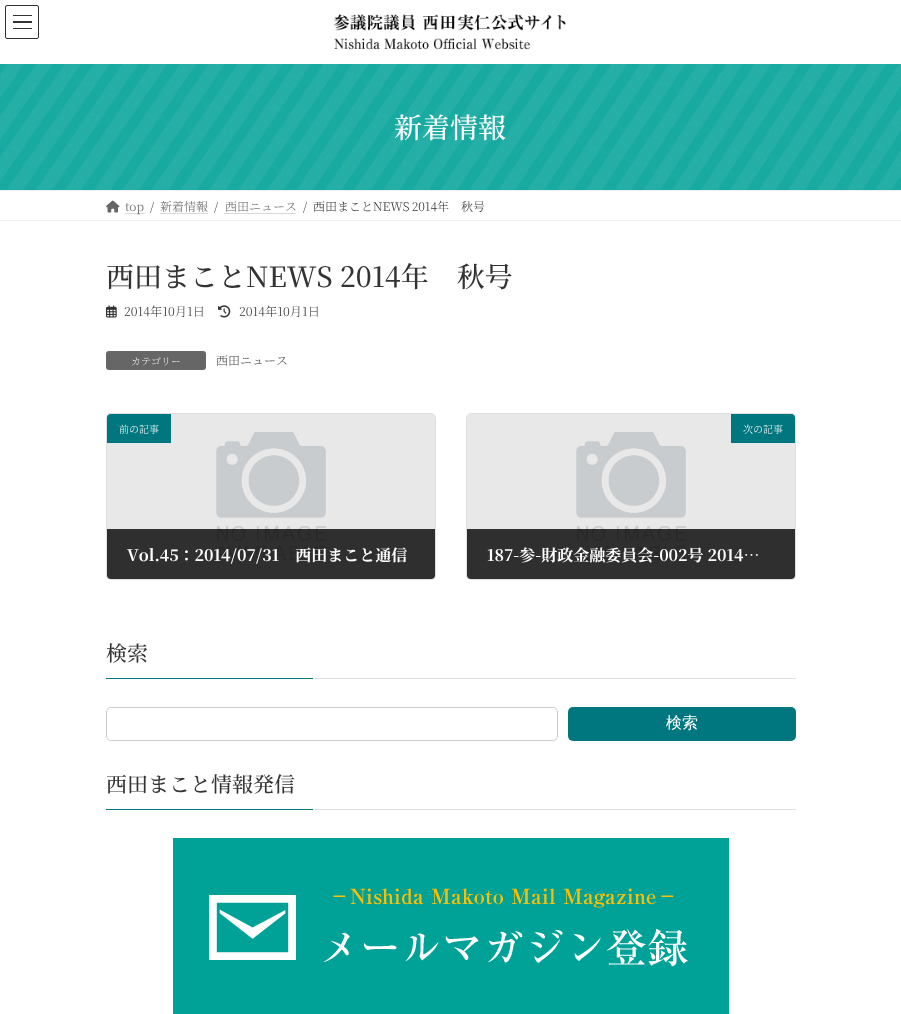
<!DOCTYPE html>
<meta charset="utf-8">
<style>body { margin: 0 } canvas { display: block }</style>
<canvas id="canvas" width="901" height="1014"></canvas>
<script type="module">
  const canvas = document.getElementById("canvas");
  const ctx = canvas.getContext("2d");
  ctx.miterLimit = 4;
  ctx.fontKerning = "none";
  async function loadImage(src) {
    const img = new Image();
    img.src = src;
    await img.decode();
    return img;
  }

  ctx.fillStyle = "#ffffff";
  ctx.fillRect(0, 0, 901, 1014);
  ctx.fillStyle = "#333333";
  ctx.fillRect(13, 15, 19, 1);
  ctx.fillRect(13, 21, 19, 2);
  ctx.fillRect(13, 28, 19, 1);
  ctx.beginPath();
  ctx.roundRect(5.5, 5.5, 33, 33, 1.5);
  ctx.strokeStyle = "#333333";
  ctx.stroke();
  ctx.drawImage(await loadImage("img1.png"), 334, 14, 232, 36);
  ctx.drawImage(await loadImage("img2.png"), 0, 64, 901, 126);
  ctx.font = "500 28px Noto Serif JP";
  ctx.fillStyle = "#ffffff";
  ctx.fillText("新着情報", 394, 138);
  ctx.fillStyle = "#f0f0f0";
  ctx.fillRect(0, 190, 901, 1);
  ctx.fillRect(0, 220, 901, 1);
  ctx.drawImage(await loadImage("img3.png"), 106, 200, 14, 13);
  ctx.beginPath();
  ctx.moveTo(125.5, 213.5);
  ctx.lineTo(144.5, 213.5);
  ctx.strokeStyle = "#b3b3b3";
  ctx.setLineDash([1, 1]);
  ctx.stroke();
  ctx.font = "300 12px Noto Serif JP";
  ctx.fillStyle = "#666666";
  ctx.fillText("top", 125, 211);
  ctx.fillStyle = "#333333";
  ctx.fillText("/", 150, 211);
  ctx.fillStyle = "#666666";
  ctx.fillText("新着情報", 160, 211);
  ctx.beginPath();
  ctx.moveTo(160.5, 213.5);
  ctx.lineTo(208.5, 213.5);
  ctx.stroke();
  ctx.fillStyle = "#333333";
  ctx.fillText("/", 214, 211);
  ctx.fillStyle = "#666666";
  ctx.fillText("西田ニュース", 225, 211);
  ctx.beginPath();
  ctx.moveTo(224.5, 213.5);
  ctx.lineTo(296.5, 213.5);
  ctx.stroke();
  ctx.fillStyle = "#333333";
  ctx.fillText("/", 303, 211);
  ctx.wordSpacing = "-1px";
  ctx.fillText("西田まことNEWS 2014年　秋号", 313, 211);
  ctx.wordSpacing = "0px";
  ctx.font = "500 28px Noto Serif JP";
  ctx.fillText("西田まことNEWS 2014年　秋号", 106, 287);
  ctx.drawImage(await loadImage("img4.png"), 106, 305, 11, 13);
  ctx.font = "300 12.25px Noto Serif JP";
  ctx.fillText("2014年10月1日", 124, 316);
  ctx.drawImage(await loadImage("img5.png"), 218, 305, 13, 13);
  ctx.fillText("2014年10月1日", 239, 316);
  ctx.fillStyle = "#666666";
  ctx.beginPath();
  ctx.roundRect(106, 351, 100, 19, 3);
  ctx.fill();
  ctx.font = "200 10px Noto Serif JP";
  ctx.fillStyle = "#ffffff";
  ctx.fillText("カテゴリー", 131, 365);
  ctx.font = "300 12px Noto Serif JP";
  ctx.fillStyle = "#464646";
  ctx.fillText("西田ニュース", 216, 365);
  ctx.beginPath();
  ctx.roundRect(106.5, 413.5, 329, 166, 4.5);
  ctx.strokeStyle = "#dfdfdf";
  ctx.setLineDash([]);
  ctx.stroke();
  ctx.drawImage(await loadImage("img6.png"), 107, 414, 328, 165);
  ctx.save();
  ctx.beginPath();
  ctx.roundRect(107, 414, 328, 165, 4);
  ctx.clip();
  ctx.fillStyle = "#e5e5e5";
  ctx.fillRect(107, 578, 328, 1);
  ctx.restore();
  ctx.fillStyle = "#00777f";
  ctx.beginPath();
  ctx.roundRect(107, 414, 64, 29, [4, 0, 0, 0]);
  ctx.fill();
  ctx.font = "300 10px Noto Serif JP";
  ctx.fillStyle = "#ffffff";
  ctx.fillText("前の記事", 119, 433);
  ctx.fillStyle = "rgba(0, 0, 0, 0.8)";
  ctx.beginPath();
  ctx.roundRect(107, 529, 328, 50, [0, 0, 4, 4]);
  ctx.fill();
  ctx.font = "bold 16px Noto Serif JP";
  ctx.fillStyle = "#ffffff";
  ctx.fillText("Vol.45：2014/07/31　西田まこと通信", 127, 561);
  ctx.beginPath();
  ctx.roundRect(466.5, 413.5, 329, 166, 4.5);
  ctx.stroke();
  ctx.drawImage(await loadImage("img7.png"), 467, 414, 328, 165);
  ctx.save();
  ctx.beginPath();
  ctx.roundRect(467, 414, 328, 165, 4);
  ctx.clip();
  ctx.fillStyle = "#e5e5e5";
  ctx.fillRect(467, 578, 328, 1);
  ctx.restore();
  ctx.fillStyle = "#00777f";
  ctx.beginPath();
  ctx.roundRect(731, 414, 64, 29, [0, 4, 0, 0]);
  ctx.fill();
  ctx.font = "300 10px Noto Serif JP";
  ctx.fillStyle = "#ffffff";
  ctx.fillText("次の記事", 743, 433);
  ctx.fillStyle = "rgba(0, 0, 0, 0.8)";
  ctx.beginPath();
  ctx.roundRect(467, 529, 328, 50, [0, 0, 4, 4]);
  ctx.fill();
  ctx.font = "bold 16px Noto Serif JP";
  ctx.fillStyle = "#ffffff";
  ctx.fillText("187-参-財政金融委員会-002号 2014…", 487, 561);
  ctx.fillStyle = "#e0e0e0";
  ctx.fillRect(313, 678, 483, 1);
  ctx.font = "500 21px Noto Serif JP";
  ctx.fillStyle = "#333333";
  ctx.fillText("検索", 106, 661);
  ctx.fillStyle = "#00777f";
  ctx.fillRect(106, 678, 207, 1);
  ctx.beginPath();
  ctx.roundRect(106.5, 707.5, 451, 33, 4.5);
  ctx.strokeStyle = "#cccccc";
  ctx.stroke();
  ctx.beginPath();
  ctx.roundRect(568, 707, 228, 34, 5);
  ctx.fill();
  ctx.font = "500 16px WenQuanYi Zen Hei";
  ctx.fillStyle = "#ffffff";
  ctx.fillText("検索", 666, 728);
  ctx.fillStyle = "#e0e0e0";
  ctx.fillRect(313, 809, 483, 1);
  ctx.font = "500 21px Noto Serif JP";
  ctx.fillStyle = "#333333";
  ctx.fillText("西田まこと情報発信", 106, 792);
  ctx.fillStyle = "#00777f";
  ctx.fillRect(106, 809, 207, 1);
  ctx.drawImage(await loadImage("img8.png"), 173, 838, 556, 176);
</script>
